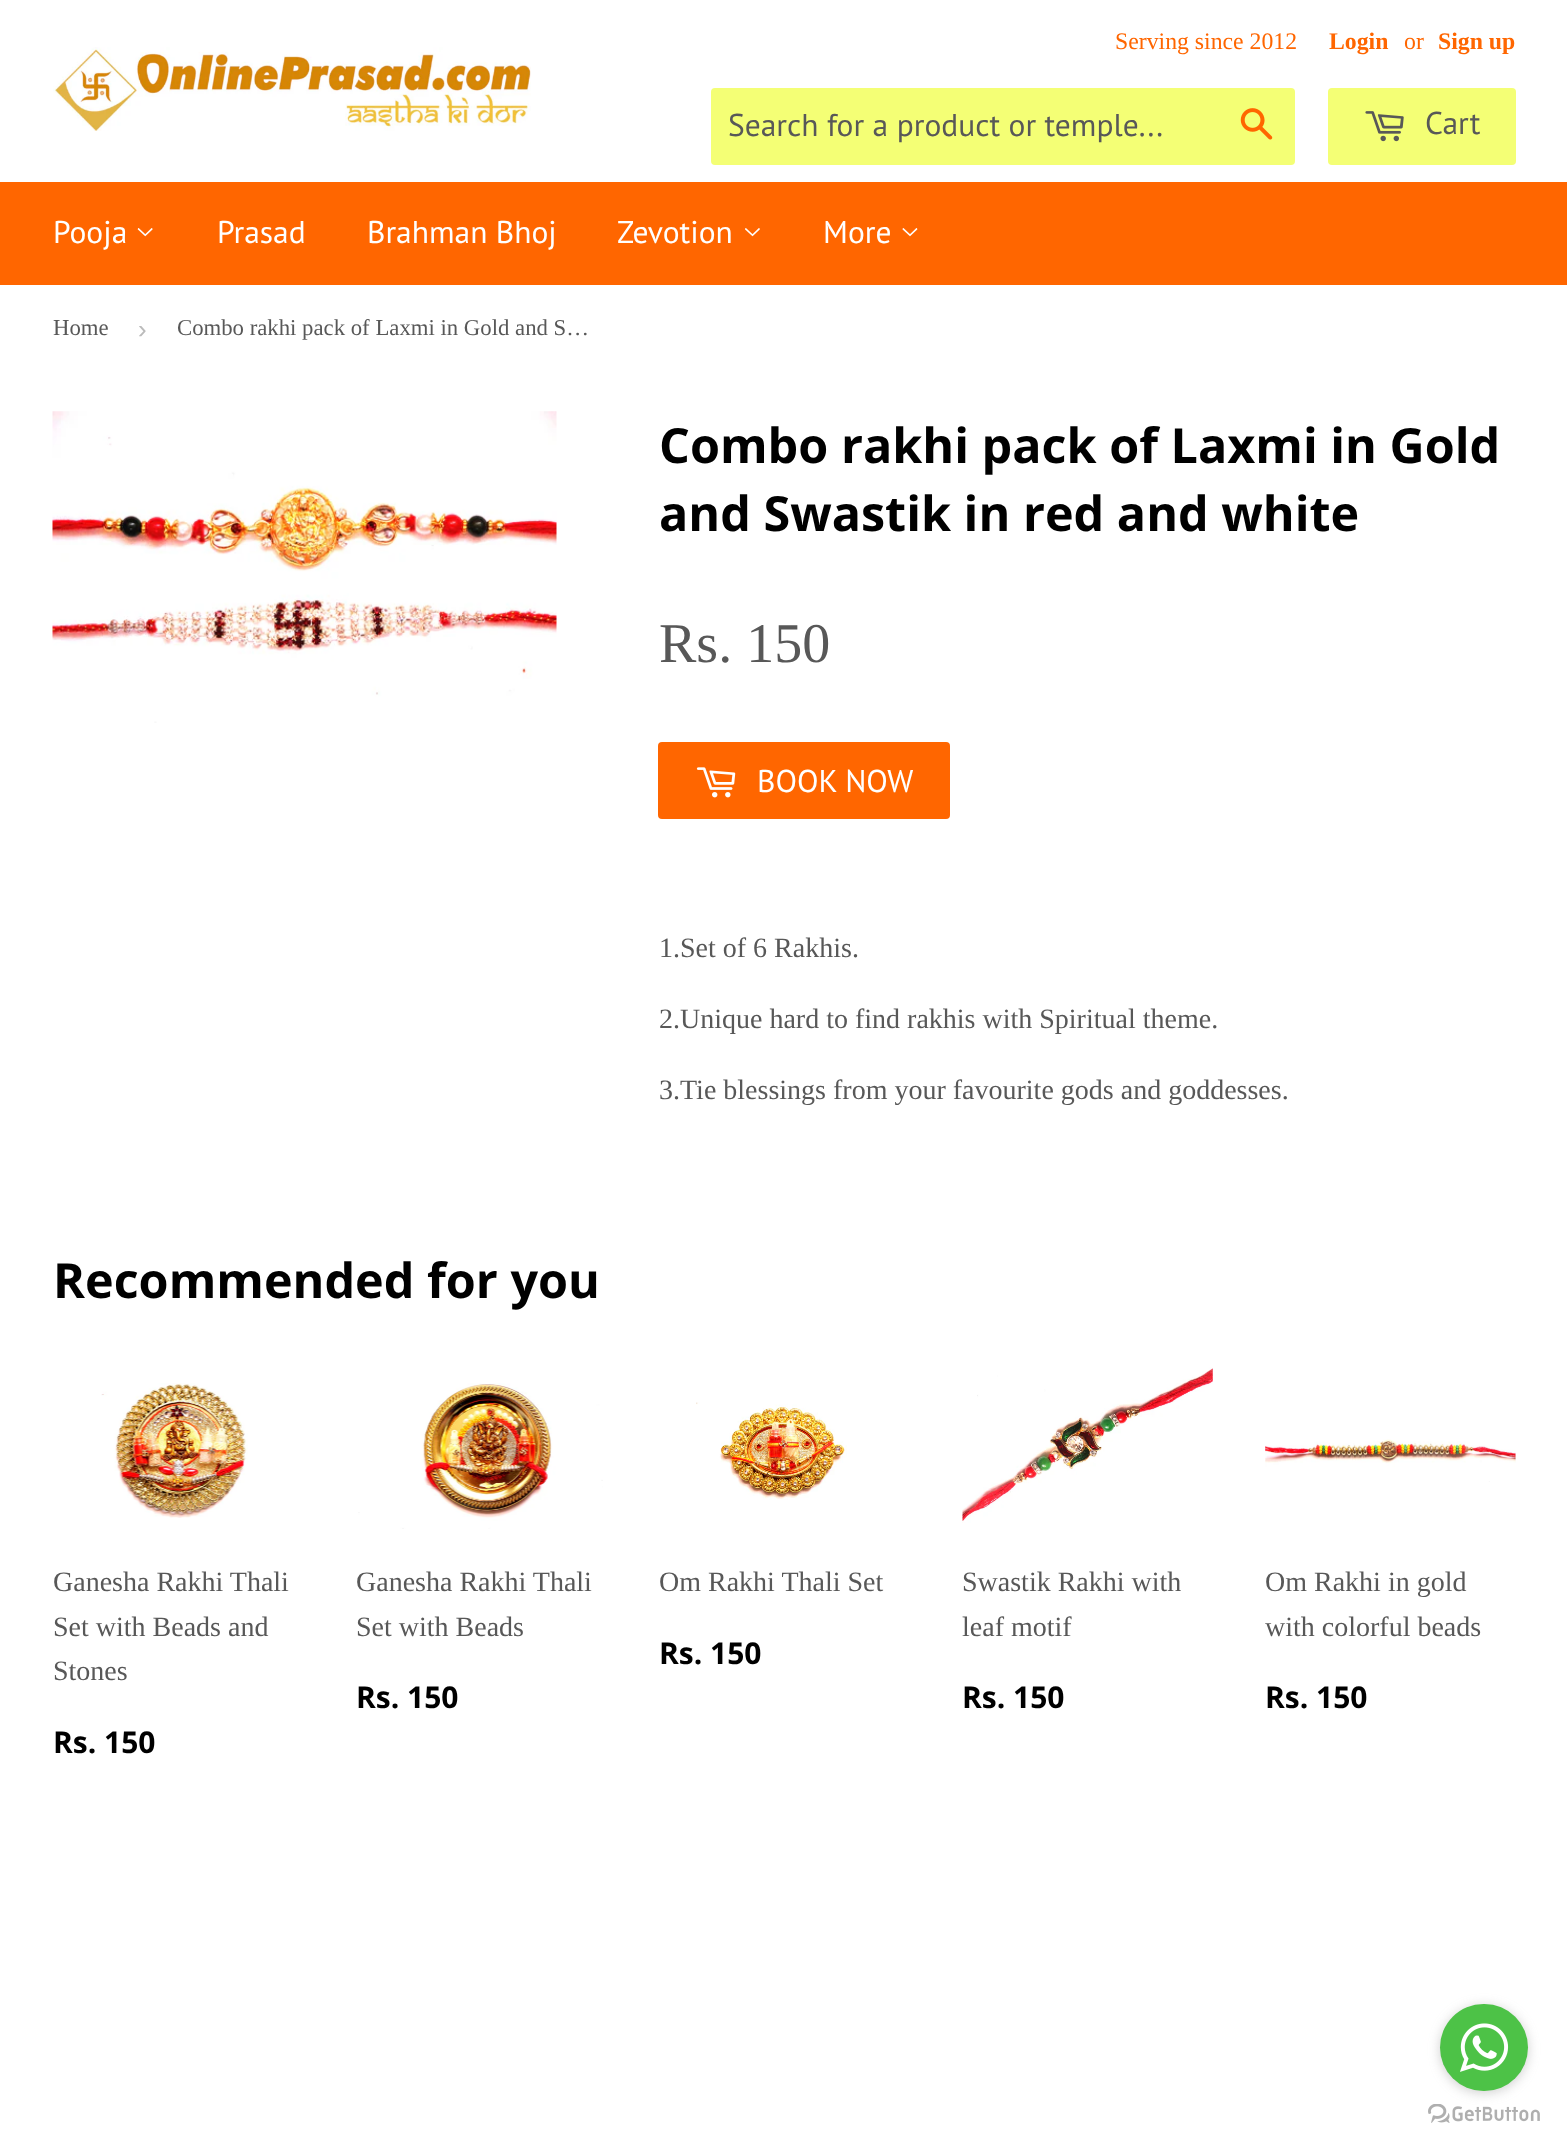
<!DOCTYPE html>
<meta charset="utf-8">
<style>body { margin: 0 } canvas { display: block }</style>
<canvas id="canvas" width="1567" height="2150"></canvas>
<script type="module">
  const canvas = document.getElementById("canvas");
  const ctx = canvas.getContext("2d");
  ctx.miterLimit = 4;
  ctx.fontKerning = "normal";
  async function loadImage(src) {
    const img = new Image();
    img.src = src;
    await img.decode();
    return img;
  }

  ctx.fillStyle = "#ffffff";
  ctx.fillRect(0, 0, 1567, 2150);
  ctx.drawImage(await loadImage("img1.png"), 53, 47, 478, 84);
  ctx.font = "23.75px Liberation Serif";
  ctx.fillStyle = "#ff6600";
  ctx.fillText("Serving since 2012", 1115, 49);
  ctx.font = "bold 23.75px Liberation Serif";
  ctx.fillText("Login", 1329, 49);
  ctx.font = "23.75px Liberation Serif";
  ctx.fillText("or", 1404, 49);
  ctx.font = "bold 23.75px Liberation Serif";
  ctx.fillText("Sign up", 1438, 49);
  ctx.fillStyle = "#f4ff75";
  ctx.beginPath();
  ctx.roundRect(711, 88, 584, 77, 4);
  ctx.fill();
  ctx.font = "31.5px PT Sans";
  ctx.fillStyle = "#585858";
  ctx.fillText("Search for a product or temple...", 728, 136);
  ctx.drawImage(await loadImage("img2.png"), 1240, 108, 33, 32);
  ctx.fillStyle = "#f4ff75";
  ctx.beginPath();
  ctx.roundRect(1328, 88, 188, 77, 4);
  ctx.fill();
  ctx.drawImage(await loadImage("img3.png"), 1365, 111, 39, 31);
  ctx.fillStyle = "#585858";
  ctx.fillText("Cart", 1425, 134);
  ctx.fillStyle = "#ff6600";
  ctx.fillRect(0, 182, 1567, 103);
  ctx.fillStyle = "#ffffff";
  ctx.fillText("Pooja", 53, 243);
  ctx.drawImage(await loadImage("img4.png"), 137, 228, 16, 9);
  ctx.fillText("Prasad", 217, 243);
  ctx.fillText("Brahman Bhoj", 367, 243);
  ctx.fillText("Zevotion", 617, 243);
  ctx.drawImage(await loadImage("img5.png"), 745, 228, 15, 9);
  ctx.fillText("More", 823, 243);
  ctx.drawImage(await loadImage("img6.png"), 902, 228, 16, 9);
  ctx.font = "22.75px Liberation Serif";
  ctx.fillStyle = "#585858";
  ctx.fillText("Home", 53, 335);
  ctx.font = "26px Liberation Sans";
  ctx.fillStyle = "#bbbbbb";
  ctx.fillText("›", 138, 338);
  ctx.font = "22.75px Liberation Serif";
  ctx.fillStyle = "#585858";
  ctx.fillText("Combo rakhi pack of Laxmi in Gold and S…", 177, 335);
  ctx.drawImage(await loadImage("img7.png"), 52, 411, 505, 312);
  ctx.font = "bold 48.5px Open Sans";
  ctx.fillStyle = "#000000";
  ctx.fillText("Combo rakhi pack of Laxmi in Gold", 659, 463);
  ctx.fillText("and Swastik in red and white", 659, 531);
  ctx.font = "56px Liberation Serif";
  ctx.fillStyle = "#585858";
  ctx.fillText("Rs. 150", 659, 662);
  ctx.fillStyle = "#ff6600";
  ctx.beginPath();
  ctx.roundRect(658, 742, 292, 77, 4);
  ctx.fill();
  ctx.drawImage(await loadImage("img8.png"), 696, 767, 40, 31);
  ctx.font = "31.5px PT Sans";
  ctx.fillStyle = "#ffffff";
  ctx.fillText("BOOK NOW", 757, 792);
  ctx.font = "28px Liberation Serif";
  ctx.fillStyle = "#585858";
  ctx.fillText("1.Set of 6 Rakhis.", 659, 957);
  ctx.fillText("2.Unique hard to find rakhis with Spiritual theme.", 659, 1028);
  ctx.fillText("3.Tie blessings from your favourite gods and goddesses.", 659, 1099);
  ctx.font = "bold 48.5px Open Sans";
  ctx.fillStyle = "#000000";
  ctx.fillText("Recommended for you", 53, 1298);
  ctx.drawImage(await loadImage("img9.png"), 101, 1383, 147, 135);
  ctx.font = "28px Liberation Serif";
  ctx.fillStyle = "#585858";
  ctx.fillText("Ganesha Rakhi Thali", 53, 1591);
  ctx.fillText("Set with Beads and", 53, 1636);
  ctx.fillText("Stones", 53, 1680);
  ctx.font = "bold 30px Open Sans";
  ctx.fillStyle = "#000000";
  ctx.fillText("Rs. 150", 53, 1753);
  ctx.drawImage(await loadImage("img10.png"), 358, 1383, 245, 146);
  ctx.font = "28px Liberation Serif";
  ctx.fillStyle = "#585858";
  ctx.fillText("Ganesha Rakhi Thali", 356, 1591);
  ctx.fillText("Set with Beads", 356, 1636);
  ctx.font = "bold 30px Open Sans";
  ctx.fillStyle = "#000000";
  ctx.fillText("Rs. 150", 356, 1708);
  ctx.drawImage(await loadImage("img11.png"), 696, 1402, 151, 98);
  ctx.font = "28px Liberation Serif";
  ctx.fillStyle = "#585858";
  ctx.fillText("Om Rakhi Thali Set", 659, 1591);
  ctx.font = "bold 30px Open Sans";
  ctx.fillStyle = "#000000";
  ctx.fillText("Rs. 150", 659, 1664);
  ctx.drawImage(await loadImage("img12.png"), 962, 1367, 251, 156);
  ctx.font = "28px Liberation Serif";
  ctx.fillStyle = "#585858";
  ctx.fillText("Swastik Rakhi with", 962, 1591);
  ctx.fillText("leaf motif", 962, 1636);
  ctx.font = "bold 30px Open Sans";
  ctx.fillStyle = "#000000";
  ctx.fillText("Rs. 150", 962, 1708);
  ctx.drawImage(await loadImage("img13.png"), 1265, 1439, 251, 43);
  ctx.font = "28px Liberation Serif";
  ctx.fillStyle = "#585858";
  ctx.fillText("Om Rakhi in gold", 1265, 1591);
  ctx.fillText("with colorful beads", 1265, 1636);
  ctx.font = "bold 30px Open Sans";
  ctx.fillStyle = "#000000";
  ctx.fillText("Rs. 150", 1265, 1708);
  ctx.drawImage(await loadImage("img15.png"), 1428, 2104, 112, 19);
  ctx.fillStyle = "rgba(136, 136, 136, 0.4)";
  ctx.filter = "blur(6px)";
  ctx.beginPath();
  ctx.roundRect(1440, 2006, 88, 87, 43.5);
  ctx.fill();
  ctx.filter = "none";
  ctx.fillStyle = "#4dc247";
  ctx.beginPath();
  ctx.roundRect(1440, 2004, 88, 87, 43.5);
  ctx.fill();
  ctx.drawImage(await loadImage("img14.png"), 1460, 2023, 49, 49);
</script>
